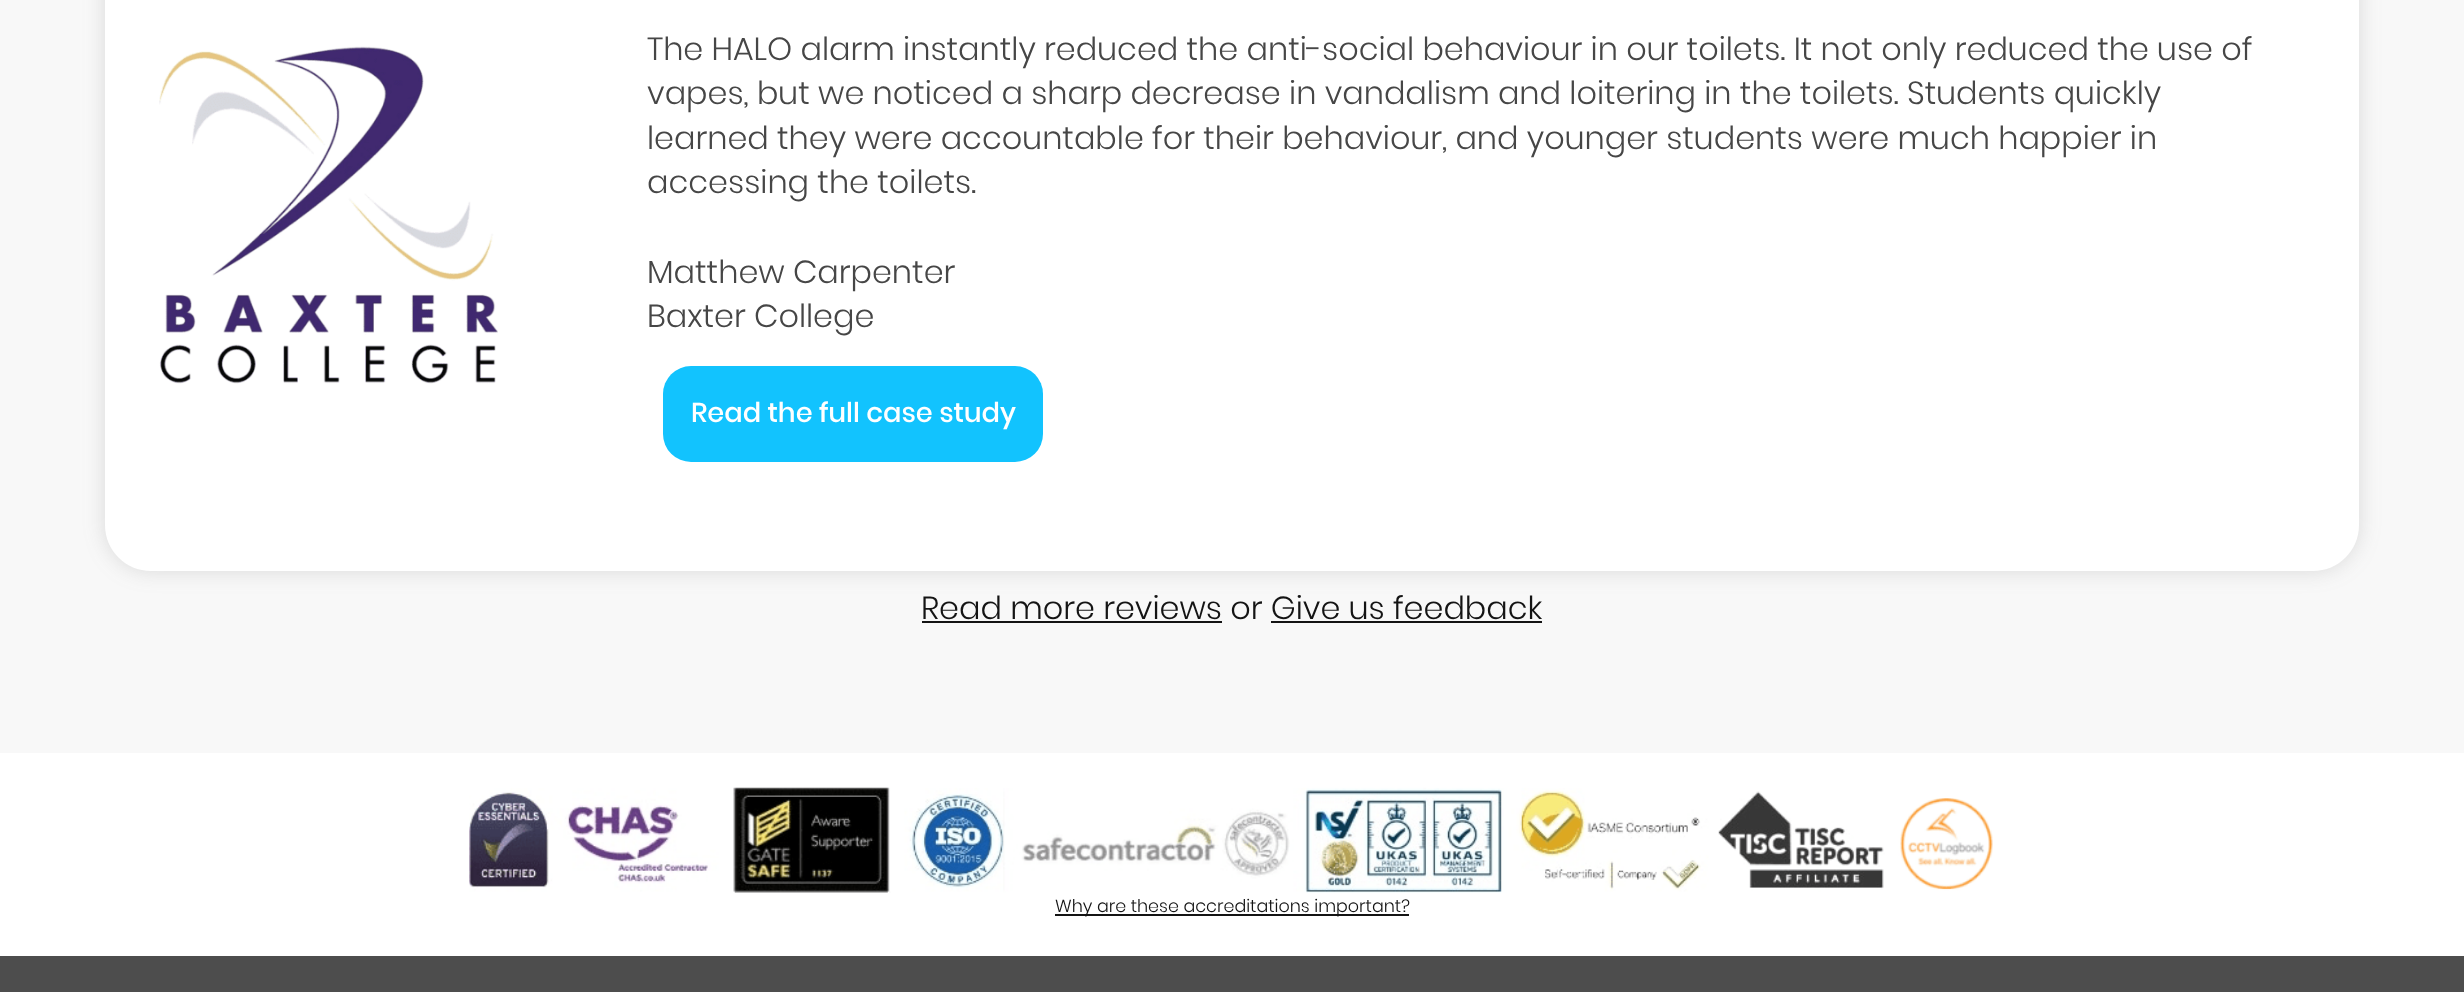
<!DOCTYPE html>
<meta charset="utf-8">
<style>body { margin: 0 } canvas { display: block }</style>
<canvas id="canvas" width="2464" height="992"></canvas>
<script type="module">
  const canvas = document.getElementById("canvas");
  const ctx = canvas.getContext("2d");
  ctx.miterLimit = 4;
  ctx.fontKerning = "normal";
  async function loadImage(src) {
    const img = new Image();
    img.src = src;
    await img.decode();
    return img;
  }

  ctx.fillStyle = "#4d4d4d";
  ctx.fillRect(0, 0, 2464, 992);
  ctx.fillStyle = "#f8f8f8";
  ctx.fillRect(0, 0, 2464, 753);
  ctx.fillStyle = "rgba(100, 100, 100, 0.2)";
  ctx.filter = "blur(10.5px)";
  ctx.beginPath();
  ctx.roundRect(105, -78, 2254, 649, 46);
  ctx.fill();
  ctx.filter = "none";
  ctx.fillStyle = "#ffffff";
  ctx.beginPath();
  ctx.moveTo(151, -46);
  ctx.lineTo(557, -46);
  ctx.lineTo(557, 571);
  ctx.lineTo(151, 571);
  ctx.bezierCurveTo(125.5, 571, 105, 550.5, 105, 525);
  ctx.lineTo(105, 0);
  ctx.bezierCurveTo(105, -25.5, 125.5, -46, 151, -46);
  ctx.closePath();
  ctx.fill();
  ctx.drawImage(await loadImage("img1.png"), 159, 46, 339, 338);
  ctx.beginPath();
  ctx.moveTo(557, -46);
  ctx.lineTo(2313, -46);
  ctx.bezierCurveTo(2338.5, -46, 2359, -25.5, 2359, 0);
  ctx.lineTo(2359, 525);
  ctx.bezierCurveTo(2359, 550.5, 2338.5, 571, 2313, 571);
  ctx.lineTo(557, 571);
  ctx.closePath();
  ctx.fill();
  ctx.font = "300 31.85px Poppins";
  ctx.fillStyle = "#464646";
  ctx.fillText("The HALO alarm instantly reduced the anti-social behaviour in our toilets. It not only reduced the use of", 647, 60);
  ctx.fillText("vapes, but we noticed a sharp decrease in vandalism and loitering in the toilets. Students quickly", 647, 104);
  ctx.fillText("learned they were accountable for their behaviour, and younger students were much happier in", 647, 149);
  ctx.fillText("accessing the toilets.", 647, 193);
  ctx.fillText("Matthew Carpenter", 647, 283);
  ctx.fillText("Baxter College", 647, 327);
  ctx.fillStyle = "#12c3fe";
  ctx.beginPath();
  ctx.roundRect(663, 366, 380, 96, 28);
  ctx.fill();
  ctx.font = "500 27.25px Poppins";
  ctx.fillStyle = "#ffffff";
  ctx.fillText("Read the full case study", 691, 422);
  ctx.font = "300 31.85px Poppins";
  ctx.fillStyle = "#141414";
  ctx.fillText("Read more reviews or Give us feedback", 921, 619);
  ctx.fillRect(922, 621, 300, 2);
  ctx.fillRect(1271, 621, 271, 2);
  ctx.fillStyle = "#ffffff";
  ctx.fillRect(0, 753, 2464, 203);
  ctx.drawImage(await loadImage("img2.png"), 469, 787, 1524, 106);
  ctx.fillStyle = "#141414";
  ctx.fillRect(1055, 914, 354, 2);
  ctx.font = "300 17.5px Poppins";
  ctx.fillText("Why are these accreditations important?", 1055, 912);
</script>
